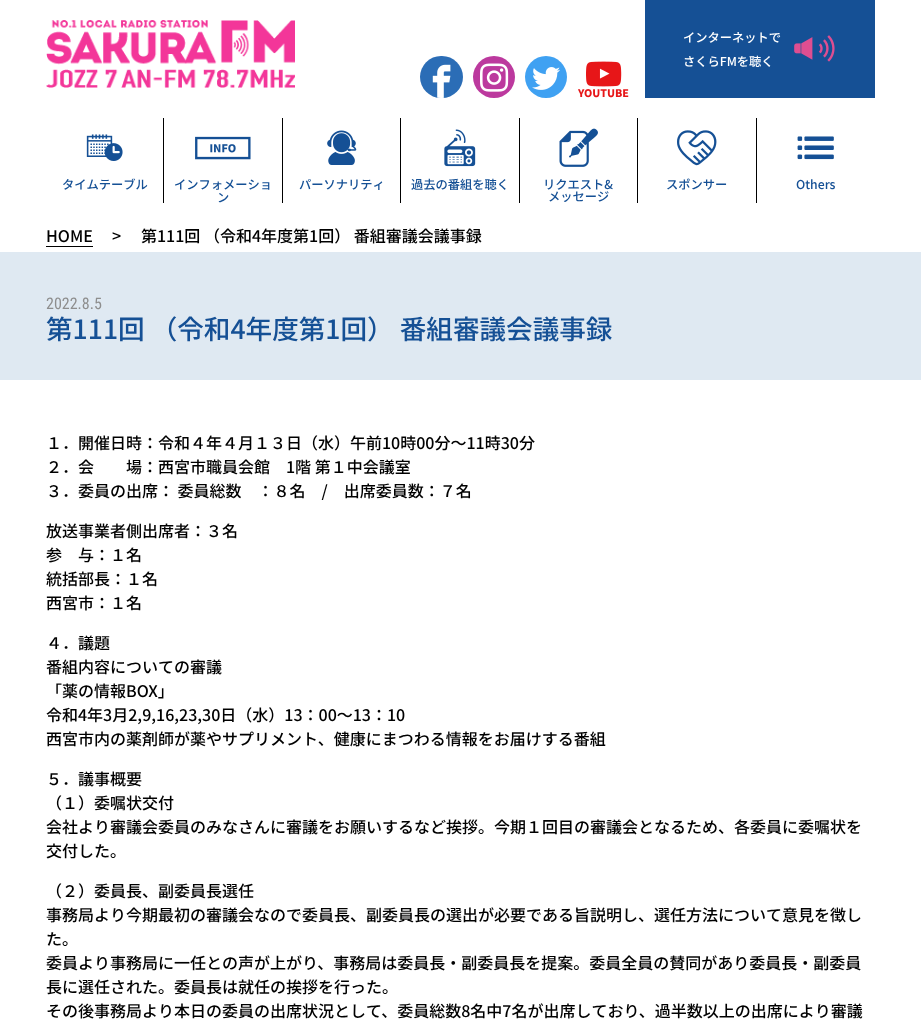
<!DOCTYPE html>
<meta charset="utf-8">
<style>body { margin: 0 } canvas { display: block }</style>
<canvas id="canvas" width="921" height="1025"></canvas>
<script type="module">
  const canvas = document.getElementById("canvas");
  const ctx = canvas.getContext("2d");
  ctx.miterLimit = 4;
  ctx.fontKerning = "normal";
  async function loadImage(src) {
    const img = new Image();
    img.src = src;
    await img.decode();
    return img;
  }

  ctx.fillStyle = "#ffffff";
  ctx.fillRect(0, 0, 921, 1025);
  ctx.drawImage(await loadImage("img1.png"), 46, 20, 249, 68);
  ctx.fillStyle = "#155095";
  ctx.fillRect(645, 0, 230, 98);
  ctx.font = "500 12.25px Noto Sans JP";
  ctx.fillStyle = "#ffffff";
  ctx.fillText("インターネットで", 683, 42);
  ctx.fillText("さくらFMを聴く", 683, 66);
  ctx.drawImage(await loadImage("img2.png"), 794, 35, 41, 27);
  ctx.fillStyle = "#2b6db6";
  ctx.beginPath();
  ctx.roundRect(420, 56, 43, 42, 21);
  ctx.fill();
  ctx.drawImage(await loadImage("img3.png"), 432, 64, 19, 34);
  ctx.fillStyle = "#bc399e";
  ctx.beginPath();
  ctx.arc(494, 77, 21, 0, Math.PI * 2);
  ctx.fill();
  ctx.drawImage(await loadImage("img4.png"), 480, 63, 29, 29);
  ctx.fillStyle = "#3fa1f2";
  ctx.beginPath();
  ctx.arc(546, 77, 21, 0, Math.PI * 2);
  ctx.fill();
  ctx.drawImage(await loadImage("img5.png"), 532, 67, 28, 23);
  ctx.drawImage(await loadImage("img6.png"), 586, 61, 36, 26);
  ctx.font = "900 10.5px Noto Sans JP";
  ctx.fillStyle = "#e71618";
  ctx.fillText("YOUTUBE", 578, 97);
  ctx.fillStyle = "#000000";
  ctx.fillRect(163, 118, 1, 85);
  ctx.drawImage(await loadImage("img7.png"), 86, 134, 37, 27);
  ctx.font = "500 12.25px Noto Sans JP";
  ctx.fillStyle = "#155095";
  ctx.fillText("タイムテーブル", 62, 189);
  ctx.fillStyle = "#000000";
  ctx.fillRect(282, 118, 1, 85);
  ctx.drawImage(await loadImage("img8.png"), 195, 136, 56, 24);
  ctx.fillStyle = "#155095";
  ctx.fillText("インフォメーショ", 174, 189);
  ctx.fillText("ン", 217, 202);
  ctx.fillStyle = "#000000";
  ctx.fillRect(400, 118, 1, 85);
  ctx.drawImage(await loadImage("img9.png"), 327, 130, 30, 35);
  ctx.fillStyle = "#155095";
  ctx.fillText("パーソナリティ", 299, 189);
  ctx.fillStyle = "#000000";
  ctx.fillRect(519, 118, 1, 85);
  ctx.drawImage(await loadImage("img10.png"), 444, 129, 32, 38);
  ctx.fillStyle = "#155095";
  ctx.fillText("過去の番組を聴く", 411, 189);
  ctx.fillStyle = "#000000";
  ctx.fillRect(637, 118, 1, 85);
  ctx.drawImage(await loadImage("img11.png"), 559, 128, 39, 39);
  ctx.fillStyle = "#155095";
  ctx.fillText("リクエスト&", 543, 189);
  ctx.fillText("メッセージ", 548, 201);
  ctx.fillStyle = "#000000";
  ctx.fillRect(756, 118, 1, 85);
  ctx.drawImage(await loadImage("img12.png"), 677, 130, 40, 36);
  ctx.fillStyle = "#155095";
  ctx.fillText("スポンサー", 666, 189);
  ctx.drawImage(await loadImage("img13.png"), 797, 136, 37, 24);
  ctx.fillText("Others", 796, 189);
  ctx.font = "500 16px Noto Sans JP";
  ctx.fillStyle = "#000000";
  ctx.fillText("HOME", 46, 242);
  ctx.fillRect(46, 246, 47, 1);
  ctx.fillText(">", 112, 242);
  ctx.fillText("第111回 （令和4年度第1回） 番組審議会議事録", 141, 242);
  ctx.fillStyle = "#dfe9f2";
  ctx.fillRect(0, 252, 921, 128);
  ctx.font = "16px Roboto Condensed";
  ctx.fillStyle = "#8e8e8e";
  ctx.fillText("2022.8.5", 46, 309);
  ctx.font = "500 26.6px Noto Sans JP";
  ctx.fillStyle = "#155095";
  ctx.fillText("第111回 （令和4年度第1回） 番組審議会議事録", 46, 339);
  ctx.font = "500 16px Noto Sans JP";
  ctx.fillStyle = "#000000";
  ctx.fillText("１．開催日時：令和４年４月１３日（水）午前10時00分～11時30分", 46, 449);
  ctx.fillText("２．会　　場：西宮市職員会館　1階 第１中会議室", 46, 473);
  ctx.fillText("３．委員の出席： 委員総数　：８名　/　出席委員数：７名", 46, 497);
  ctx.fillText("放送事業者側出席者：３名", 46, 537);
  ctx.fillText("参　与：１名", 46, 561);
  ctx.fillText("統括部長：１名", 46, 585);
  ctx.fillText("西宮市：１名", 46, 609);
  ctx.fillText("４．議題", 46, 649);
  ctx.fillText("番組内容についての審議", 46, 673);
  ctx.fillText("「薬の情報BOX」", 46, 697);
  ctx.fillText("令和4年3月2,9,16,23,30日（水）13：00〜13：10", 46, 721);
  ctx.fillText("西宮市内の薬剤師が薬やサプリメント、健康にまつわる情報をお届けする番組", 46, 745);
  ctx.fillText("５．議事概要", 46, 785);
  ctx.fillText("（１）委嘱状交付", 46, 809);
  ctx.fillText("会社より審議会委員のみなさんに審議をお願いするなど挨拶。今期１回目の審議会となるため、各委員に委嘱状を", 46, 833);
  ctx.fillText("交付した。", 46, 857);
  ctx.fillText("（２）委員長、副委員長選任", 46, 897);
  ctx.fillText("事務局より今期最初の審議会なので委員長、副委員長の選出が必要である旨説明し、選任方法について意見を徴し", 46, 921);
  ctx.fillText("た。", 46, 945);
  ctx.fillText("委員より事務局に一任との声が上がり、事務局は委員長・副委員長を提案。委員全員の賛同があり委員長・副委員", 46, 969);
  ctx.fillText("長に選任された。委員長は就任の挨拶を行った。", 46, 993);
  ctx.fillText("その後事務局より本日の委員の出席状況として、委員総数8名中7名が出席しており、過半数以上の出席により審議", 46, 1017);
</script>
